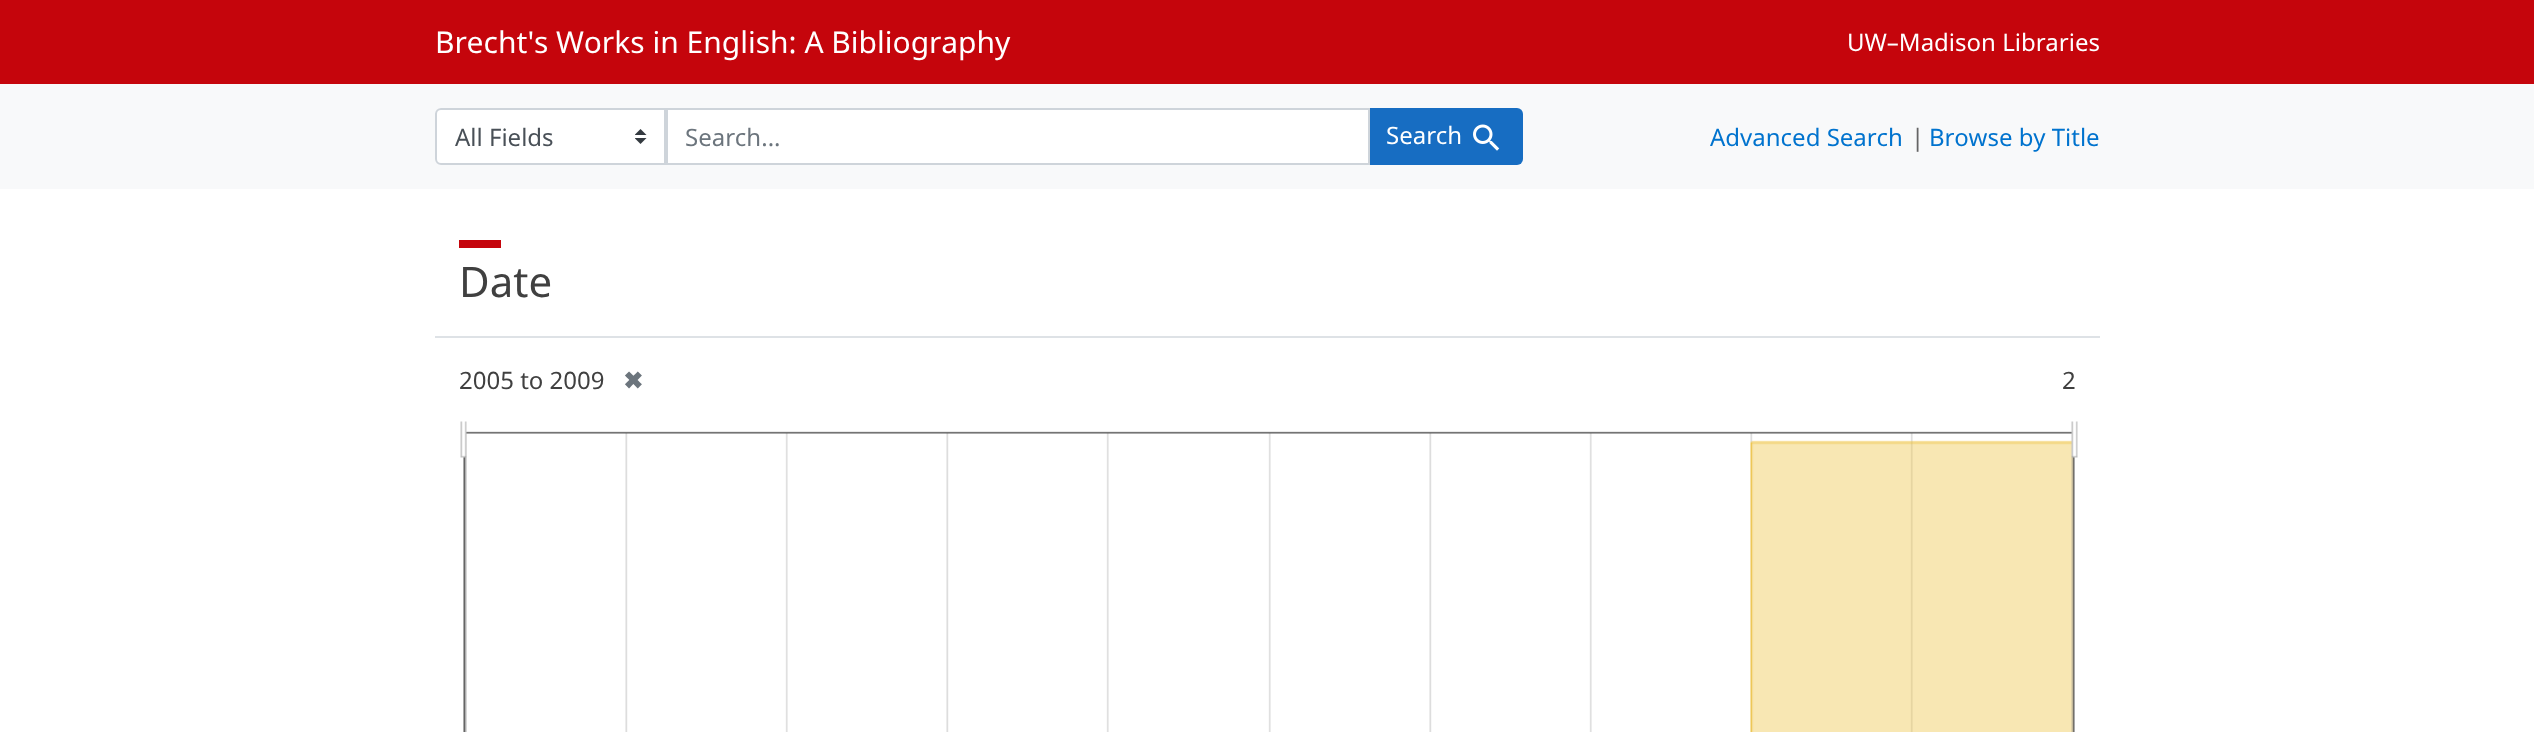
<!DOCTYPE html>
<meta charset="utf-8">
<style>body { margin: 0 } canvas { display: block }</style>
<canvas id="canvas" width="2534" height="732"></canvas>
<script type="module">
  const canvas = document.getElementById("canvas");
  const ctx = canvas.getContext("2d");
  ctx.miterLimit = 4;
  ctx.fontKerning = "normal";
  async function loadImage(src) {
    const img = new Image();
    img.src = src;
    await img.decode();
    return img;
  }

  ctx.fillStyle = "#ffffff";
  ctx.fillRect(0, 0, 2534, 732);
  ctx.fillStyle = "#c5050c";
  ctx.fillRect(0, 0, 2534, 84);
  ctx.font = "30px Noto Sans";
  ctx.fillStyle = "#ffffff";
  ctx.fillText("Brecht's Works in English: A Bibliography", 435, 53);
  ctx.font = "24px Noto Sans";
  ctx.fillText("UW–Madison Libraries", 1847, 51);
  ctx.fillStyle = "#f8f9fa";
  ctx.fillRect(0, 84, 2534, 105);
  ctx.fillStyle = "#ffffff";
  ctx.beginPath();
  ctx.roundRect(435, 108, 231, 57, [6, 0, 0, 6]);
  ctx.fill();
  ctx.drawImage(await loadImage("img1.png"), 635, 129, 12, 15);
  ctx.beginPath();
  ctx.roundRect(436, 109, 229, 55, [5, 0, 0, 5]);
  ctx.strokeStyle = "#ced4da";
  ctx.lineWidth = 2;
  ctx.stroke();
  ctx.fillStyle = "#495057";
  ctx.fillText("All Fields", 455, 146);
  ctx.fillStyle = "#176dc2";
  ctx.beginPath();
  ctx.roundRect(1368, 108, 155, 57, [0, 6, 6, 0]);
  ctx.fill();
  ctx.fillStyle = "#ffffff";
  ctx.beginPath();
  ctx.rect(667, 109, 702, 55);
  ctx.fill();
  ctx.stroke();
  ctx.fillStyle = "#6c757d";
  ctx.fillText("Search...", 685, 146);
  ctx.fillStyle = "#ffffff";
  ctx.fillText("Search", 1386, 144);
  ctx.drawImage(await loadImage("img2.png"), 1473, 124, 27, 27);
  ctx.fillStyle = "#0073ce";
  ctx.fillText("Advanced Search", 1710, 146);
  ctx.fillStyle = "#656565";
  ctx.fillText("|", 1911, 146);
  ctx.fillStyle = "#0073ce";
  ctx.fillText("Browse by Title", 1929, 146);
  ctx.fillStyle = "#dee2e6";
  ctx.fillRect(435, 336, 1665, 2);
  ctx.fillStyle = "#c5050c";
  ctx.fillRect(459, 240, 42, 8);
  ctx.font = "42px Noto Sans";
  ctx.fillStyle = "#404040";
  ctx.fillText("Date", 459, 297);
  ctx.font = "24px Noto Sans";
  ctx.fillText("2005 to 2009", 459, 389);
  ctx.font = "bold 24px DejaVu Sans";
  ctx.fillStyle = "#6c757d";
  ctx.fillText("✖", 623, 389);
  ctx.font = "24px Noto Sans";
  ctx.fillStyle = "#404040";
  ctx.fillText("2", 2062, 389);
  ctx.drawImage(await loadImage("img4.png"), 463, 431, 1612, 301);
  ctx.drawImage(await loadImage("img3.png"), 460, 421, 1618, 311);
</script>
